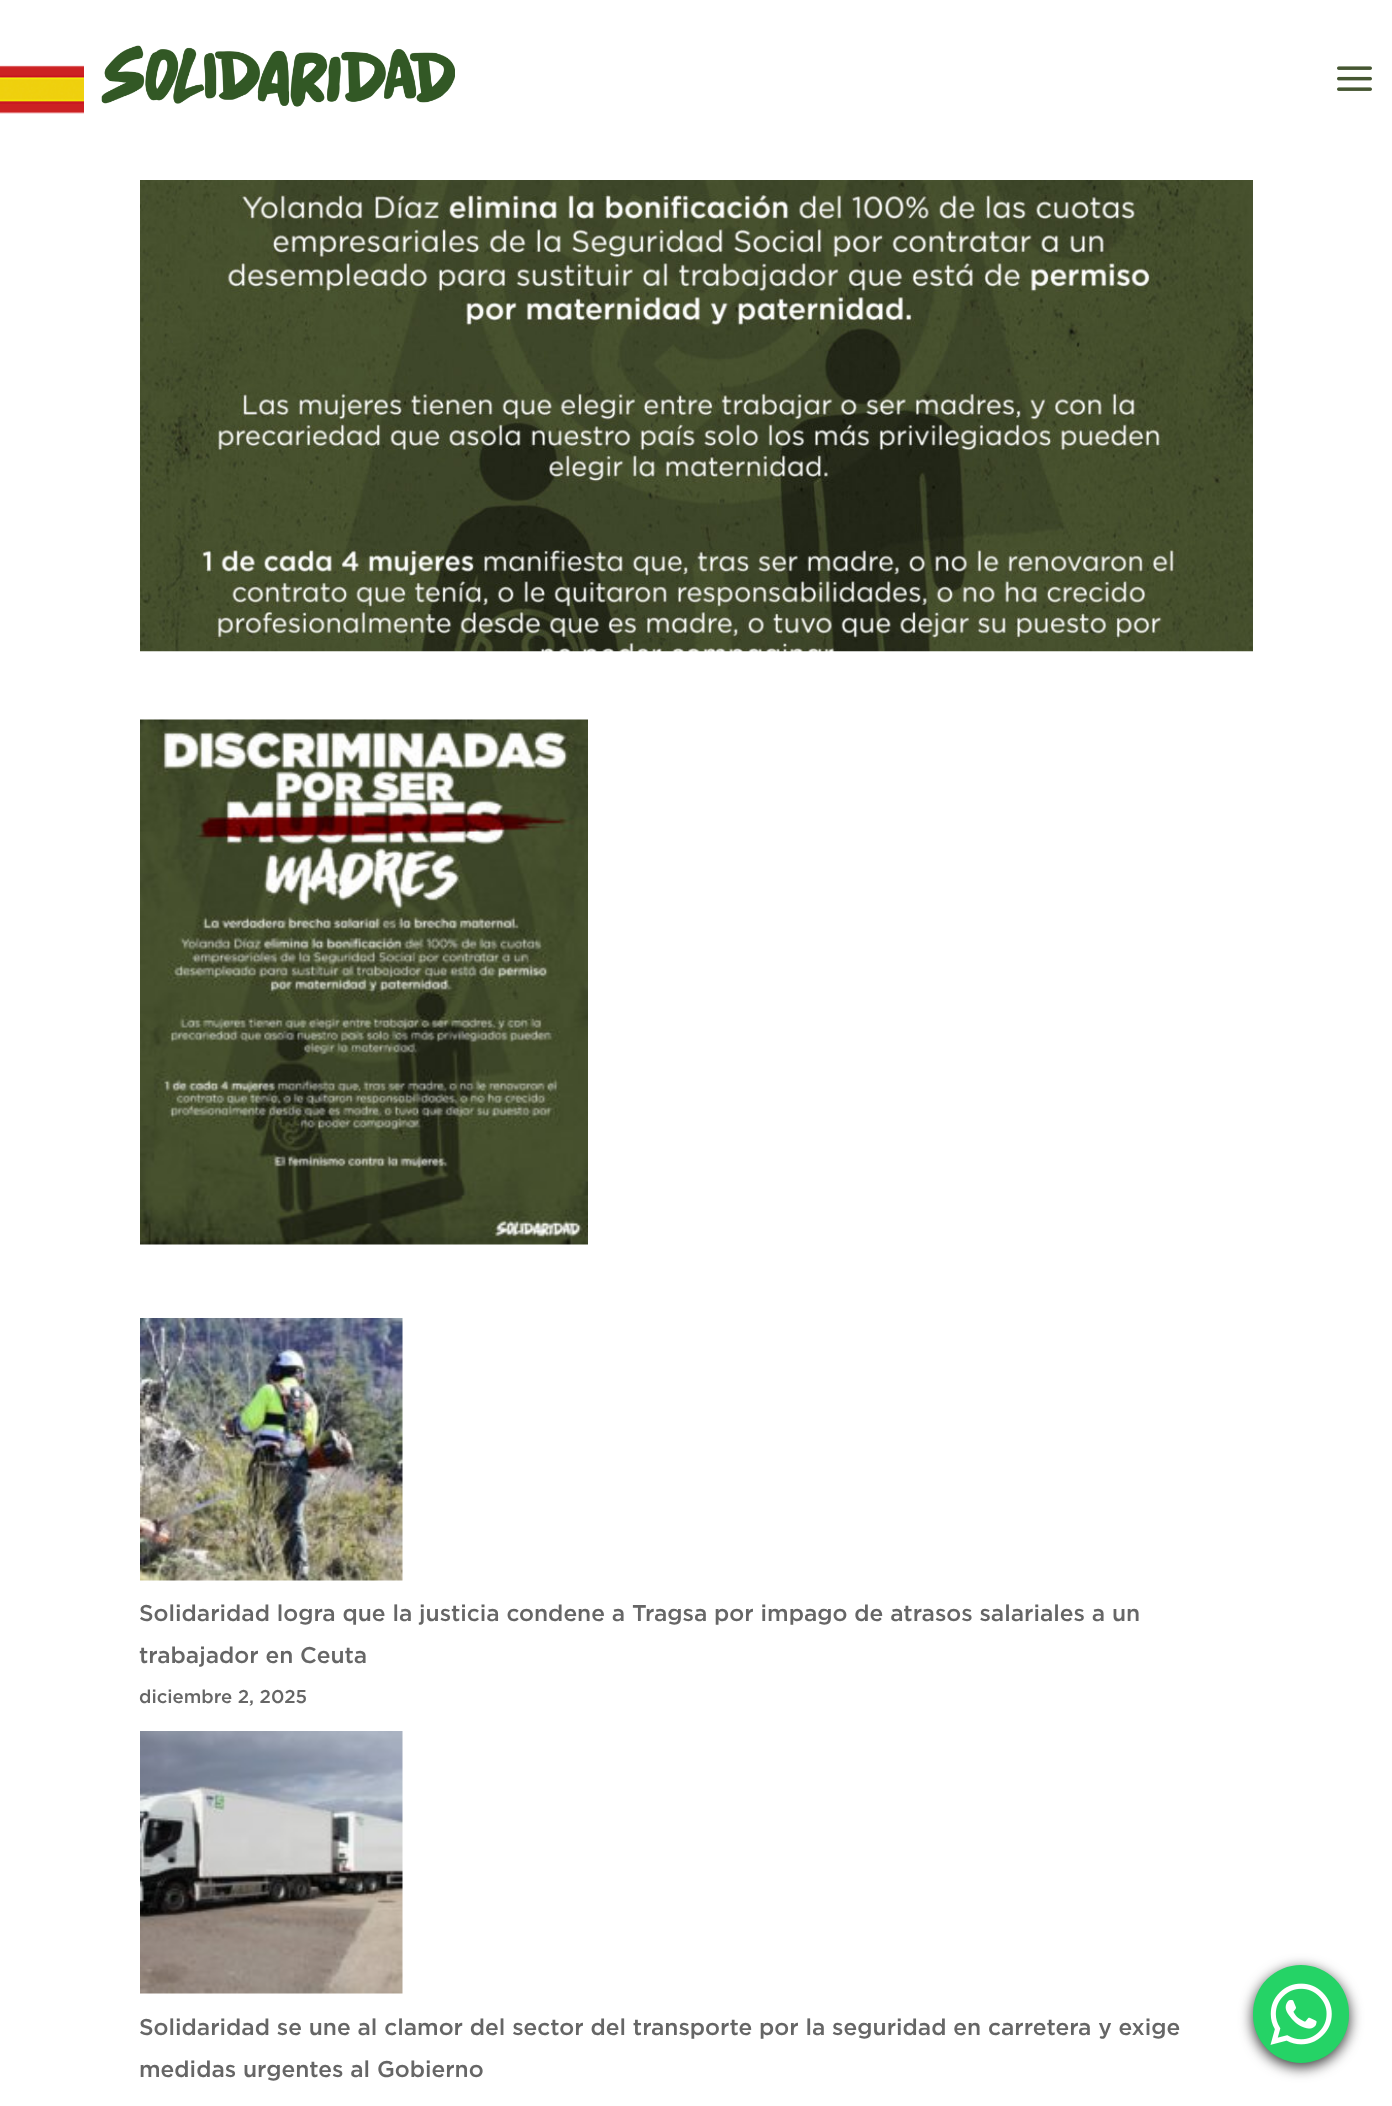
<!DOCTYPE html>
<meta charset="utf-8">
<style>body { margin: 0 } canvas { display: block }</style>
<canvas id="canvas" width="1392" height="2106"></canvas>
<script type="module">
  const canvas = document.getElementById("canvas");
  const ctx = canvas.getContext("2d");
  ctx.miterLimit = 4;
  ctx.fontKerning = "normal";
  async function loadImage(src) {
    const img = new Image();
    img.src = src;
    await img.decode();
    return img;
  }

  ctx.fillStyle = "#ffffff";
  ctx.fillRect(0, 0, 1392, 2106);
  ctx.drawImage(await loadImage("img1.png"), 0, 65, 84, 49);
  ctx.drawImage(await loadImage("img2.png"), 101, 45, 354, 62);
  ctx.drawImage(await loadImage("img3.png"), 1337, 66, 35, 25);
  ctx.drawImage(await loadImage("img4.png"), 140, 180, 1113, 472);
  ctx.drawImage(await loadImage("img5.png"), 140, 719, 448, 526);
  ctx.drawImage(await loadImage("img6.png"), 140, 1318, 263, 263);
  ctx.font = "500 22.75px Gotham";
  ctx.fillStyle = "#666666";
  ctx.fillText("Solidaridad logra que la justicia condene a Tragsa por impago de atrasos salariales a un", 139, 1621);
  ctx.fillText("trabajador en Ceuta", 139, 1663);
  ctx.font = "500 18.5px Gotham";
  ctx.fillText("diciembre 2, 2025", 139, 1703);
  ctx.drawImage(await loadImage("img7.png"), 140, 1731, 263, 263);
  ctx.font = "500 22.75px Gotham";
  ctx.fillText("Solidaridad se une al clamor del sector del transporte por la seguridad en carretera y exige", 139, 2035);
  ctx.fillText("medidas urgentes al Gobierno", 139, 2077);
  ctx.fillStyle = "#343434";
  ctx.filter = "blur(7px)";
  ctx.beginPath();
  ctx.roundRect(1253, 1969, 96, 98, 48);
  ctx.fill();
  ctx.filter = "none";
  ctx.fillStyle = "#25d366";
  ctx.beginPath();
  ctx.roundRect(1253, 1965, 96, 98, 48);
  ctx.fill();
  ctx.drawImage(await loadImage("img8.png"), 1270, 1983, 62, 62);
</script>
